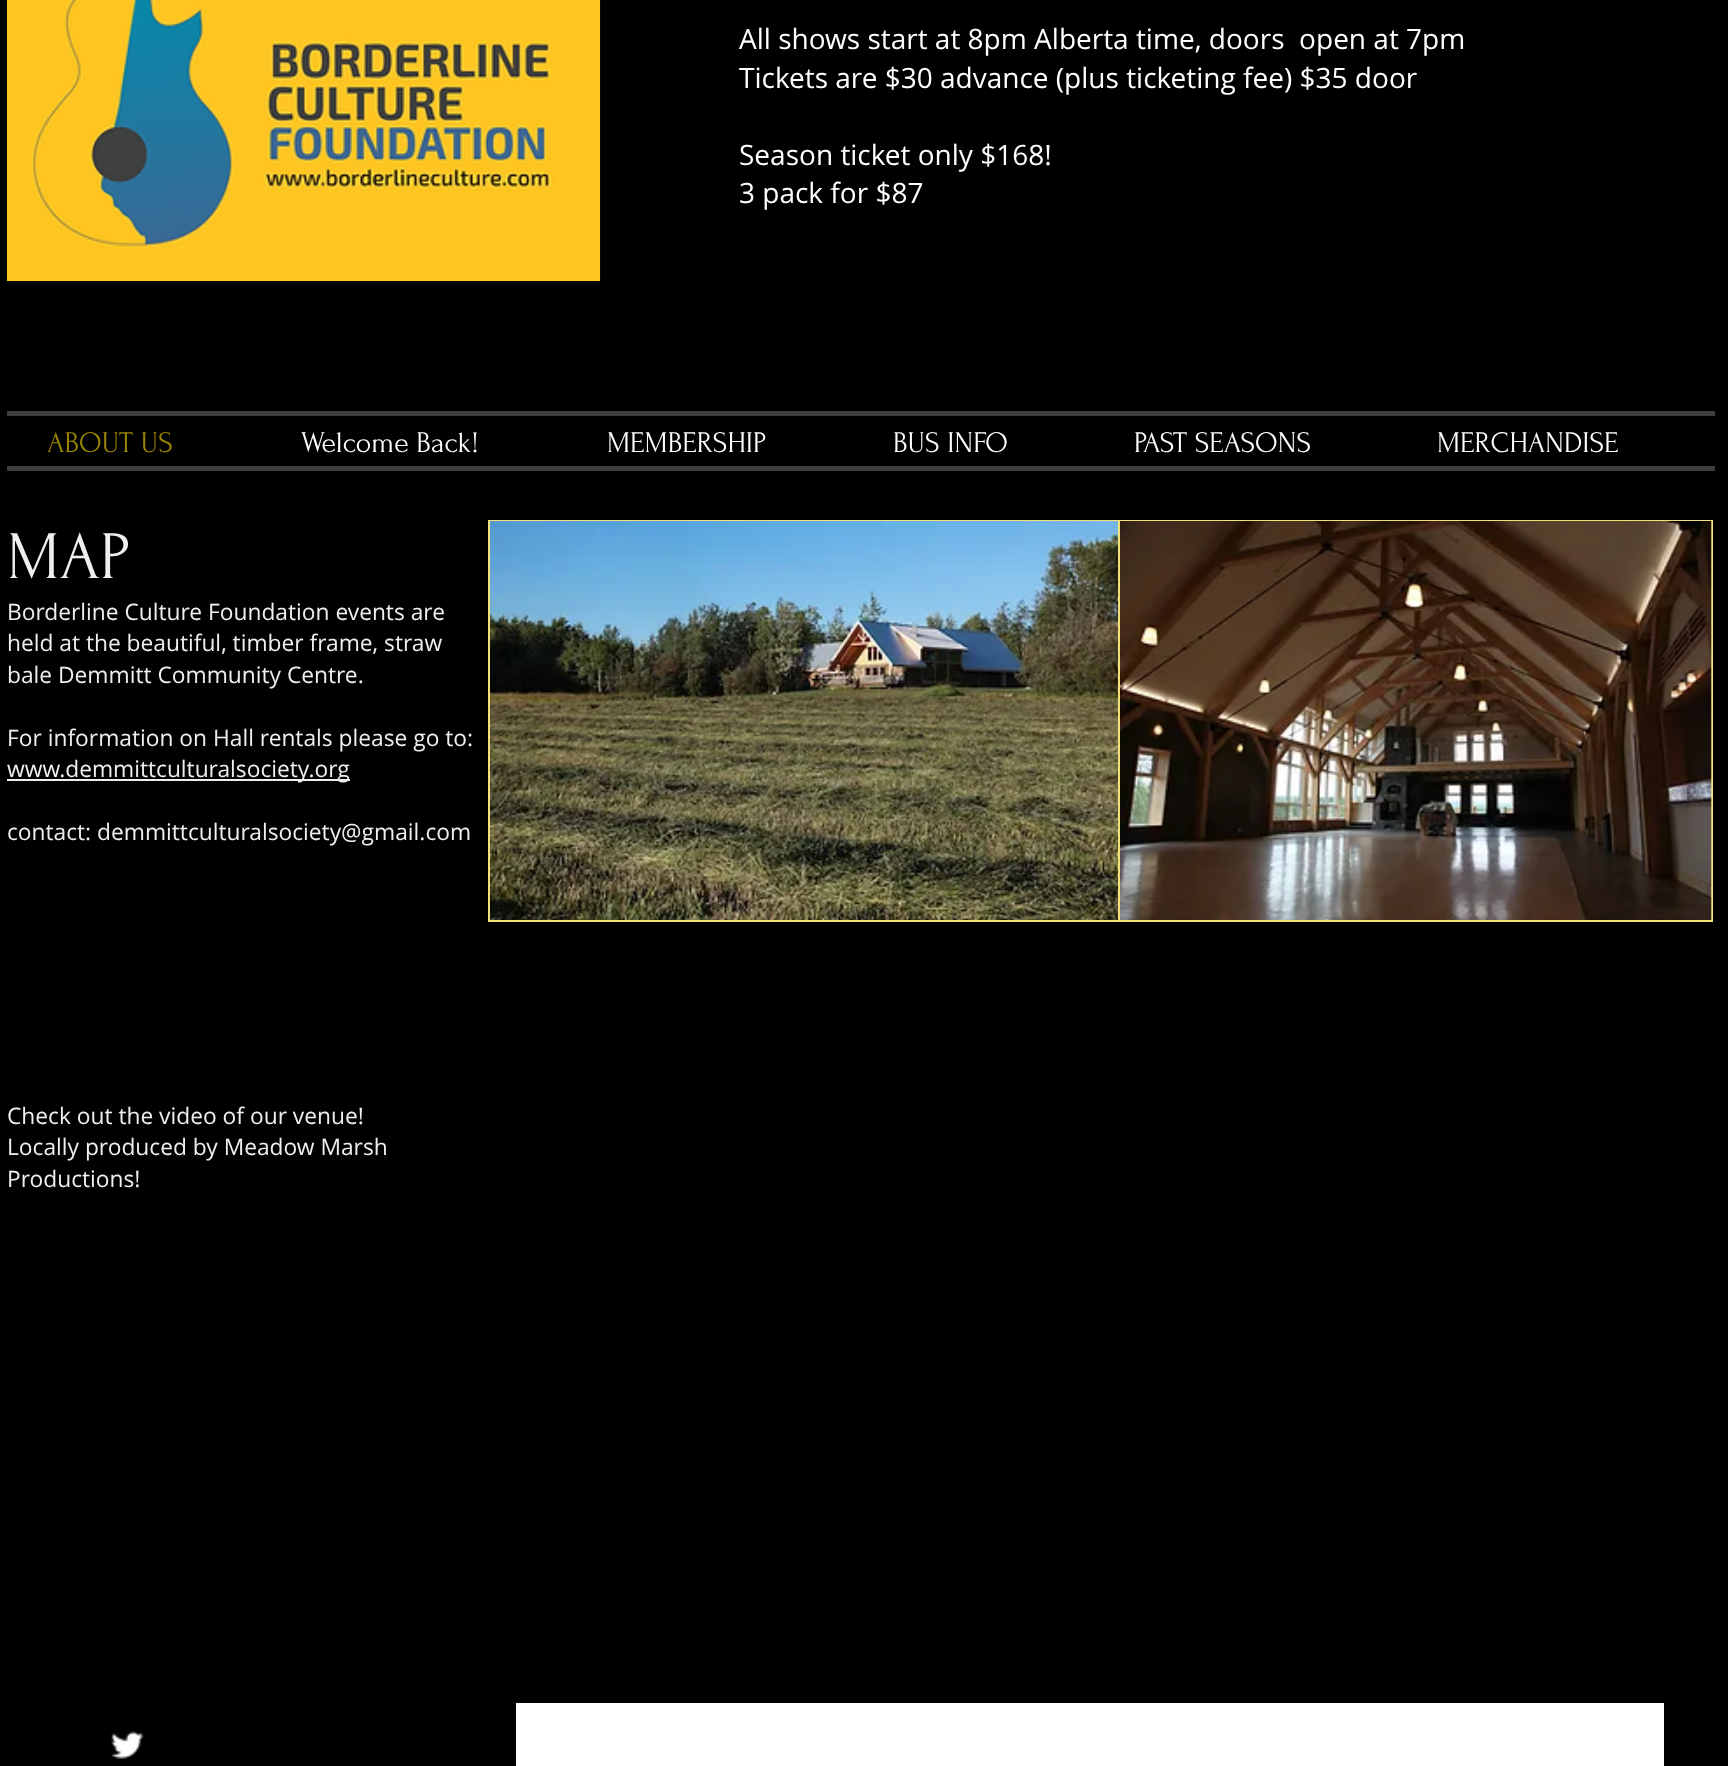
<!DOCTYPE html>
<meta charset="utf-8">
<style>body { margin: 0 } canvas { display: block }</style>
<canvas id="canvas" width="1728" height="1766"></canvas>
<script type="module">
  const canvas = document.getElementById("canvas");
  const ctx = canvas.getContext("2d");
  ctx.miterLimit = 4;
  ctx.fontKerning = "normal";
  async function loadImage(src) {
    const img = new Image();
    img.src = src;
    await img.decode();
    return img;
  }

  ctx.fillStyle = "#000000";
  ctx.fillRect(0, 0, 1728, 1766);
  ctx.drawImage(await loadImage("img1.png"), 7, 0, 594, 282);
  ctx.font = "28px Open Sans";
  ctx.fillStyle = "#ffffff";
  ctx.fillText("All shows start at 8pm Alberta time, doors  open at 7pm", 739, 49);
  ctx.fillText("Tickets are $30 advance (plus ticketing fee) $35 door", 739, 88);
  ctx.fillText("Season ticket only $168!", 739, 165);
  ctx.fillText("3 pack for $87", 739, 203);
  ctx.fillStyle = "#3e3e3e";
  ctx.fillRect(7, 411, 1708, 5);
  ctx.font = "29.75px Forum";
  ctx.fillStyle = "#9c8700";
  ctx.fillText("ABOUT US", 47, 452);
  ctx.fillStyle = "#ffffff";
  ctx.fillText("Welcome Back!", 301, 452);
  ctx.fillText("MEMBERSHIP", 607, 452);
  ctx.fillText("BUS INFO", 893, 452);
  ctx.fillText("PAST SEASONS", 1134, 452);
  ctx.fillText("MERCHANDISE", 1437, 452);
  ctx.fillStyle = "#3e3e3e";
  ctx.fillRect(7, 466, 1708, 5);
  ctx.fillStyle = "#f1e178";
  ctx.fillRect(488, 520, 1225, 402);
  ctx.drawImage(await loadImage("img2.png"), 490, 521, 628, 399);
  ctx.font = "68px Forum";
  ctx.fillStyle = "#efefef";
  ctx.fillText("MAP", 7, 578);
  ctx.font = "22.75px Open Sans";
  ctx.fillText("Borderline Culture Foundation events are", 7, 620);
  ctx.fillText("held at the beautiful, timber frame, straw", 7, 651);
  ctx.fillText("bale Demmitt Community Centre.", 7, 683);
  ctx.fillText("For information on Hall rentals please go to:", 7, 746);
  ctx.fillRect(7, 779, 343, 2);
  ctx.fillText("www.demmittculturalsociety.org", 7, 777);
  ctx.fillText("contact: demmittculturalsociety@gmail.com", 7, 840);
  ctx.fillText("Check out the video of our venue!", 7, 1124);
  ctx.fillText("Locally produced by Meadow Marsh", 7, 1155);
  ctx.fillText("Productions!", 7, 1187);
  ctx.drawImage(await loadImage("img3.png"), 1120, 521, 592, 399);
  ctx.drawImage(await loadImage("img4.png"), 111, 1731, 33, 28);
  ctx.fillStyle = "#ffffff";
  ctx.fillRect(516, 1703, 1148, 63);
</script>
